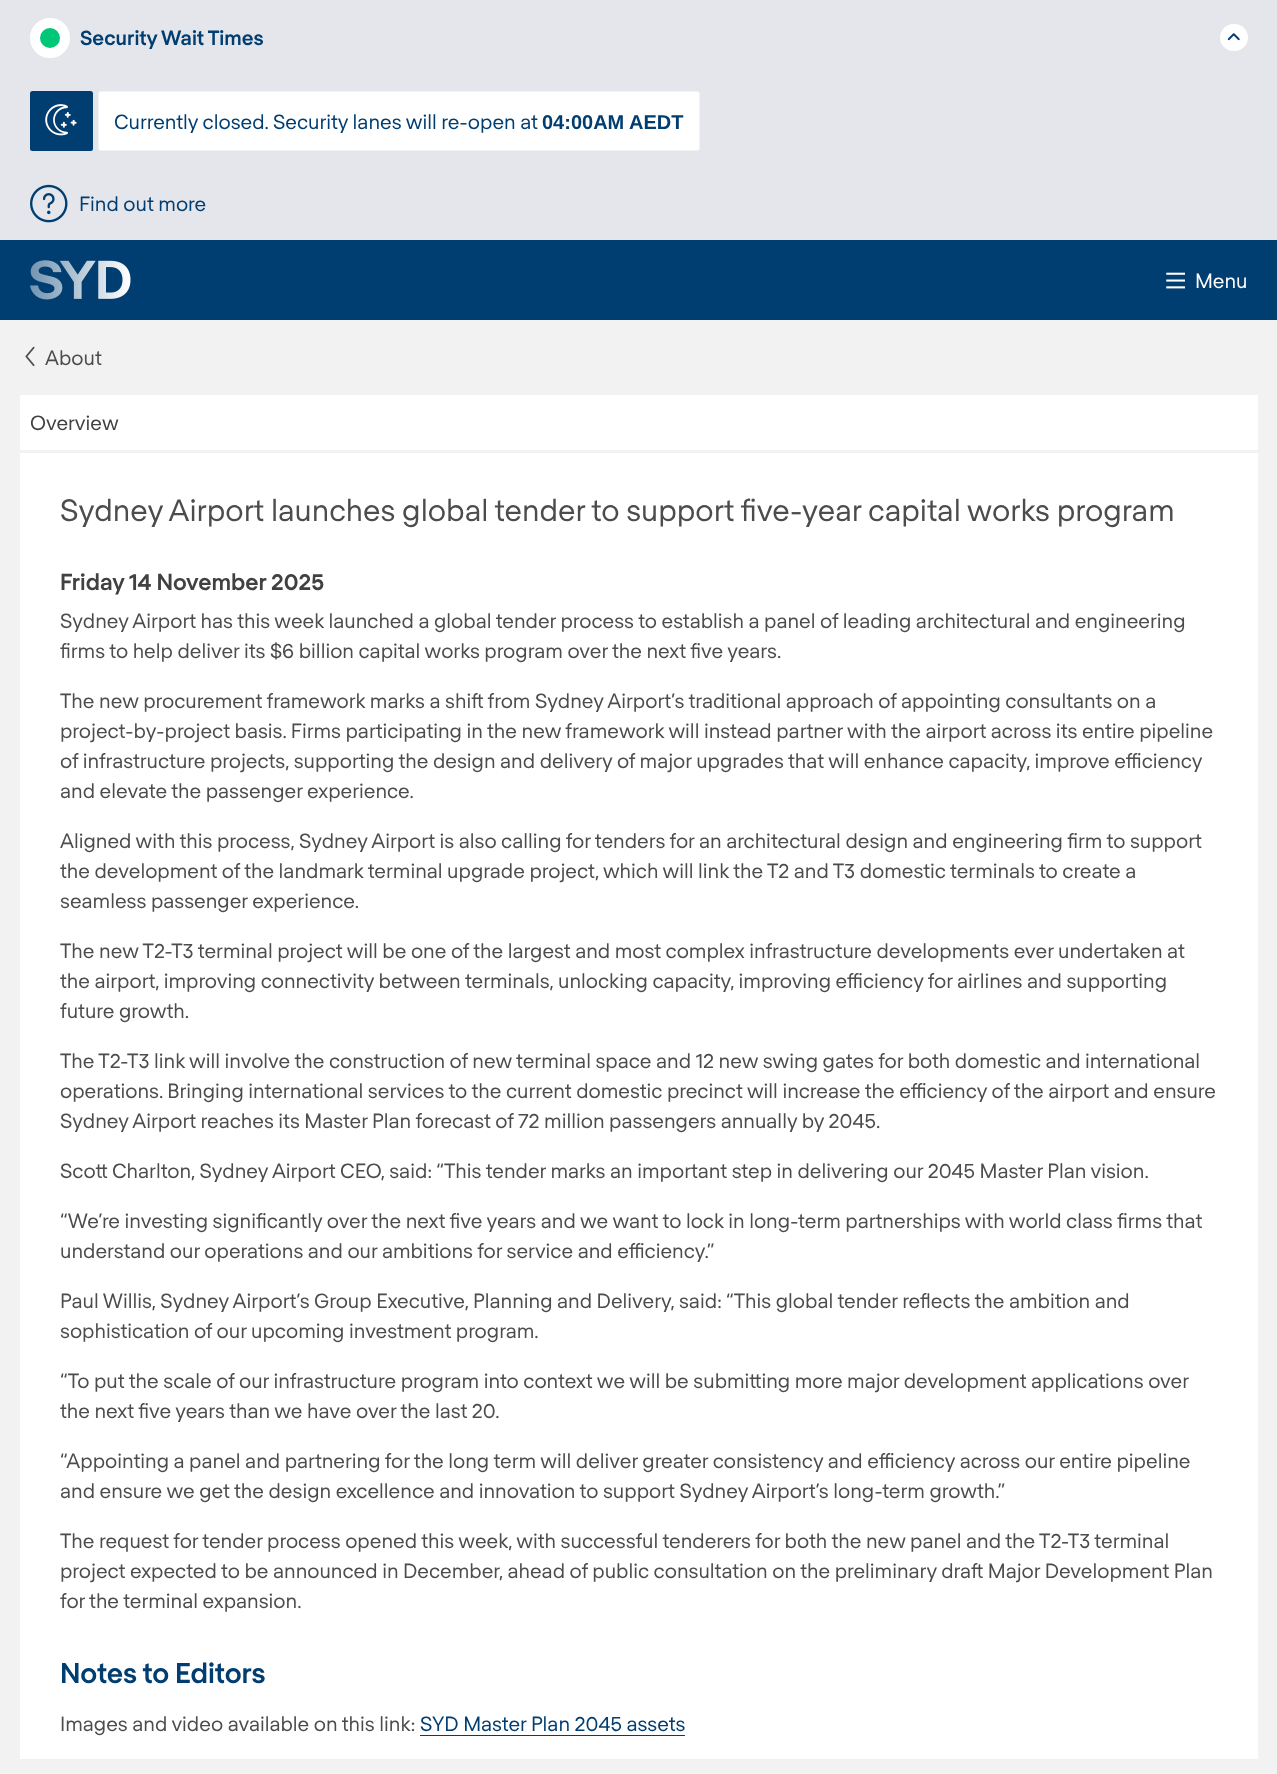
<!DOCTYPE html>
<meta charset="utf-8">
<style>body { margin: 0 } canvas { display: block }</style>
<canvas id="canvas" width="1277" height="1774"></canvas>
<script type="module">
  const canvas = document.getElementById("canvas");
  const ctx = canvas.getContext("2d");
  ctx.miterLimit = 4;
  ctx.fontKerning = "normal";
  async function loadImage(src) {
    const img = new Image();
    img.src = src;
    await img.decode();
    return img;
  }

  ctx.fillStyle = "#f2f2f2";
  ctx.fillRect(0, 0, 1277, 1774);
  ctx.fillStyle = "#e4e6eb";
  ctx.fillRect(0, 0, 1277, 240);
  ctx.fillStyle = "#00c778";
  ctx.beginPath();
  ctx.arc(50, 38, 15, 0, Math.PI * 2);
  ctx.fill();
  ctx.strokeStyle = "#ffffff";
  ctx.lineWidth = 10;
  ctx.stroke();
  ctx.font = "bold 20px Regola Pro";
  ctx.fillStyle = "#003d70";
  ctx.fillText("Security Wait Times", 80, 45);
  ctx.fillStyle = "#ffffff";
  ctx.beginPath();
  ctx.roundRect(1220, 24, 28, 27, 13.5);
  ctx.fill();
  ctx.drawImage(await loadImage("img1.png"), 1227, 33, 13, 8);
  ctx.fillStyle = "#003d70";
  ctx.beginPath();
  ctx.roundRect(30, 91, 63, 60, 2.5);
  ctx.fill();
  ctx.drawImage(await loadImage("img2.png"), 45, 104, 32, 32);
  ctx.fillStyle = "#ffffff";
  ctx.beginPath();
  ctx.roundRect(98.5, 91.5, 601, 59, 2);
  ctx.fill();
  ctx.strokeStyle = "#f2f2f2";
  ctx.lineWidth = 1;
  ctx.stroke();
  ctx.font = "20px Regola Pro";
  ctx.fillStyle = "#003d70";
  ctx.fillText("Currently closed. Security lanes will re-open at", 114, 129);
  ctx.font = "bold 20px Liberation Sans";
  ctx.fillText("04:00AM", 542, 129);
  ctx.fillText("AEDT", 629, 129);
  ctx.drawImage(await loadImage("img3.png"), 30, 184, 38, 39);
  ctx.font = "20px Regola Pro";
  ctx.fillText("Find out more", 79, 211);
  ctx.fillRect(0, 240, 1277, 80);
  ctx.drawImage(await loadImage("img4.png"), 30, 260, 101, 40);
  ctx.drawImage(await loadImage("img5.png"), 1166, 272, 19, 17);
  ctx.fillStyle = "#ffffff";
  ctx.fillText("Menu", 1195, 288);
  ctx.drawImage(await loadImage("img6.png"), 25, 346, 10, 21);
  ctx.fillStyle = "#4c4c4c";
  ctx.fillText("About", 45, 365);
  ctx.fillStyle = "#ffffff";
  ctx.fillRect(20, 395, 1238, 55);
  ctx.fillStyle = "#414042";
  ctx.fillText("Overview", 30, 430);
  ctx.fillStyle = "#ffffff";
  ctx.fillRect(20, 453, 1238, 1306);
  ctx.font = "30px Regola Pro";
  ctx.fillStyle = "#4c4c4c";
  ctx.fillText("Sydney Airport launches global tender to support five-year capital works program", 60, 521);
  ctx.font = "bold 22.5px Regola Pro";
  ctx.fillStyle = "#414042";
  ctx.fillText("Friday 14 November 2025", 60, 590);
  ctx.font = "20px Regola Pro";
  ctx.fillStyle = "#4c4c4c";
  ctx.fillText("Sydney Airport has this week launched a global tender process to establish a panel of leading architectural and engineering", 60, 628);
  ctx.fillText("firms to help deliver its $6 billion capital works program over the next five years.", 60, 658);
  ctx.fillText("The new procurement framework marks a shift from Sydney Airport’s traditional approach of appointing consultants on a", 60, 708);
  ctx.fillText("project-by-project basis. Firms participating in the new framework will instead partner with the airport across its entire pipeline", 60, 738);
  ctx.fillText("of infrastructure projects, supporting the design and delivery of major upgrades that will enhance capacity, improve efficiency", 60, 768);
  ctx.fillText("and elevate the passenger experience.", 60, 798);
  ctx.fillText("Aligned with this process, Sydney Airport is also calling for tenders for an architectural design and engineering firm to support", 60, 848);
  ctx.fillText("the development of the landmark terminal upgrade project, which will link the T2 and T3 domestic terminals to create a", 60, 878);
  ctx.fillText("seamless passenger experience.", 60, 908);
  ctx.fillText("The new T2-T3 terminal project will be one of the largest and most complex infrastructure developments ever undertaken at", 60, 958);
  ctx.fillText("the airport, improving connectivity between terminals, unlocking capacity, improving efficiency for airlines and supporting", 60, 988);
  ctx.fillText("future growth.", 60, 1018);
  ctx.fillText("The T2-T3 link will involve the construction of new terminal space and 12 new swing gates for both domestic and international", 60, 1068);
  ctx.fillText("operations. Bringing international services to the current domestic precinct will increase the efficiency of the airport and ensure", 60, 1098);
  ctx.fillText("Sydney Airport reaches its Master Plan forecast of 72 million passengers annually by 2045.", 60, 1128);
  ctx.fillText("Scott Charlton, Sydney Airport CEO, said: “This tender marks an important step in delivering our 2045 Master Plan vision.", 60, 1178);
  ctx.fillText("“We’re investing significantly over the next five years and we want to lock in long-term partnerships with world class firms that", 60, 1228);
  ctx.fillText("understand our operations and our ambitions for service and efficiency.”", 60, 1258);
  ctx.fillText("Paul Willis, Sydney Airport’s Group Executive, Planning and Delivery, said: “This global tender reflects the ambition and", 60, 1308);
  ctx.fillText("sophistication of our upcoming investment program.", 60, 1338);
  ctx.fillText("“To put the scale of our infrastructure program into context we will be submitting more major development applications over", 60, 1388);
  ctx.fillText("the next five years than we have over the last 20.", 60, 1418);
  ctx.fillText("“Appointing a panel and partnering for the long term will deliver greater consistency and efficiency across our entire pipeline", 60, 1468);
  ctx.fillText("and ensure we get the design excellence and innovation to support Sydney Airport’s long-term growth.”", 60, 1498);
  ctx.fillText("The request for tender process opened this week, with successful tenderers for both the new panel and the T2-T3 terminal", 60, 1548);
  ctx.fillText("project expected to be announced in December, ahead of public consultation on the preliminary draft Major Development Plan", 60, 1578);
  ctx.fillText("for the terminal expansion.", 60, 1608);
  ctx.font = "bold 27.75px Regola Pro";
  ctx.fillStyle = "#003d70";
  ctx.fillText("Notes to Editors", 60, 1683);
  ctx.font = "20px Regola Pro";
  ctx.fillStyle = "#4c4c4c";
  ctx.fillText("Images and video available on this link:", 60, 1731);
  ctx.fillStyle = "#003d70";
  ctx.fillText("SYD Master Plan 2045 assets", 420, 1731);
  ctx.fillRect(420, 1735, 265, 1);
</script>
